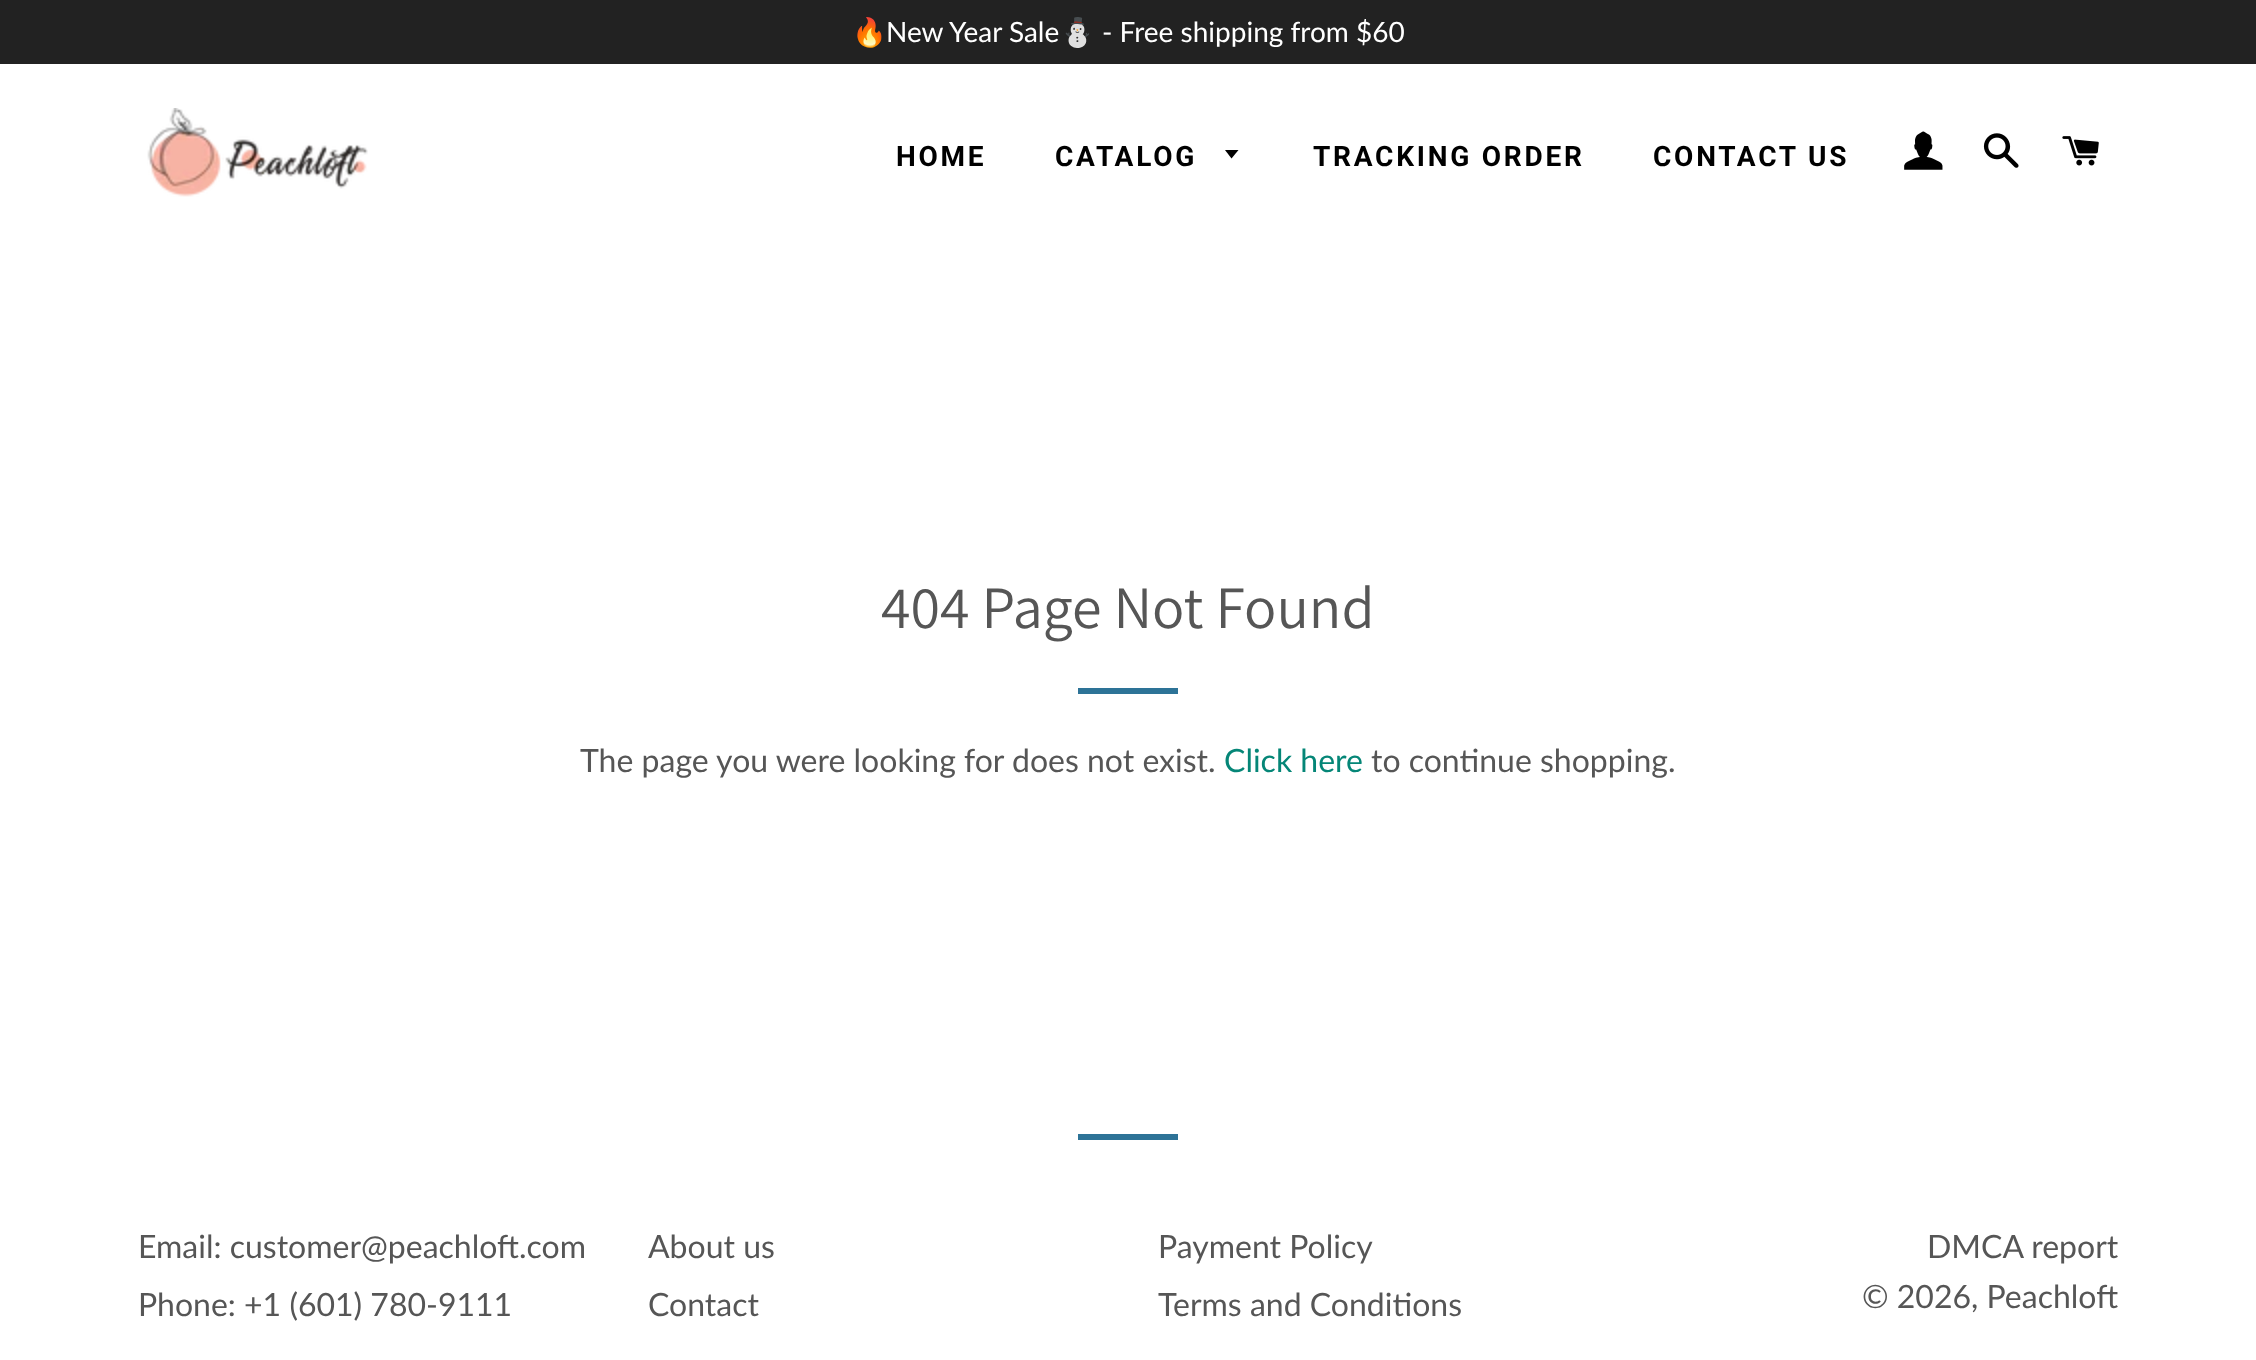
<!DOCTYPE html>
<meta charset="utf-8">
<style>body { margin: 0 } canvas { display: block }</style>
<canvas id="canvas" width="2256" height="1360"></canvas>
<script type="module">
  const canvas = document.getElementById("canvas");
  const ctx = canvas.getContext("2d");
  ctx.miterLimit = 4;
  ctx.fontKerning = "normal";
  async function loadImage(src) {
    const img = new Image();
    img.src = src;
    await img.decode();
    return img;
  }

  ctx.fillStyle = "#ffffff";
  ctx.fillRect(0, 0, 2256, 1360);
  ctx.fillStyle = "#222222";
  ctx.fillRect(0, 0, 2256, 64);
  ctx.font = "28px Noto Color Emoji";
  ctx.fillStyle = "#ffffff";
  ctx.fillText("🔥", 852, 42);
  ctx.font = "28px Lato";
  ctx.fillText("New Year Sale", 886, 42);
  ctx.font = "28px Noto Color Emoji";
  ctx.fillText("⛄", 1060, 42);
  ctx.font = "28px Lato";
  ctx.fillText("- Free shipping from $60", 1102, 42);
  ctx.drawImage(await loadImage("img1.png"), 147, 108, 221, 89);
  ctx.letterSpacing = "2.75px";
  ctx.font = "bold 28px Roboto";
  ctx.fillStyle = "#000000";
  ctx.fillText("HOME", 896, 166);
  ctx.fillText("CATALOG", 1055, 166);
  ctx.beginPath();
  ctx.moveTo(1225, 150);
  ctx.lineTo(1231.5, 158.5);
  ctx.lineTo(1238.5, 150);
  ctx.closePath();
  ctx.fill();
  ctx.fillText("TRACKING ORDER", 1313, 166);
  ctx.fillText("CONTACT US", 1653, 166);
  ctx.drawImage(await loadImage("img2.png"), 1904, 131, 39, 39);
  ctx.drawImage(await loadImage("img3.png"), 1983, 133, 36, 35);
  ctx.drawImage(await loadImage("img4.png"), 2062, 136, 37, 30);
  ctx.letterSpacing = "0px";
  ctx.font = "60px Assistant";
  ctx.fillStyle = "#565656";
  ctx.fillText("404 Page Not Found", 881, 628);
  ctx.fillStyle = "#2d7397";
  ctx.fillRect(1078, 688, 100, 6);
  ctx.font = "32px Lato";
  ctx.fillStyle = "#565656";
  ctx.fillText("The page you were looking for does not exist.", 580, 772);
  ctx.fillStyle = "#058677";
  ctx.fillText("Click here", 1224, 772);
  ctx.fillStyle = "#565656";
  ctx.fillText("to continue shopping.", 1371, 772);
  ctx.fillStyle = "#2d7397";
  ctx.fillRect(1078, 1134, 100, 6);
  ctx.fillStyle = "#565656";
  ctx.fillText("Email: customer@peachloft.com", 138, 1258);
  ctx.fillText("Phone: +1 (601) 780-9111", 138, 1316);
  ctx.fillText("About us", 648, 1258);
  ctx.fillText("Contact", 648, 1316);
  ctx.fillText("Payment Policy", 1158, 1258);
  ctx.fillText("Terms and Conditions", 1158, 1316);
  ctx.fillText("DMCA report", 1927, 1258);
  ctx.fillText("© 2026, Peachloft", 1862, 1308);
</script>
